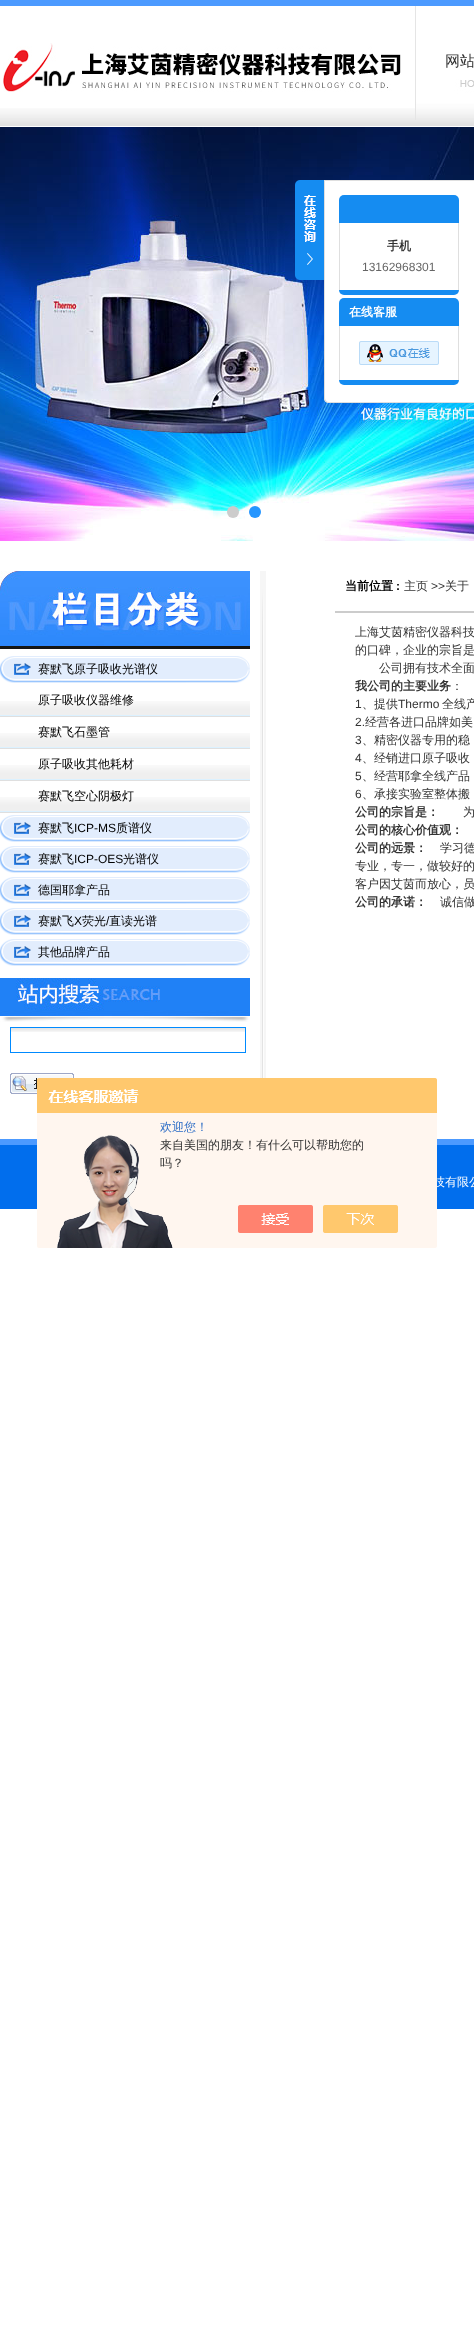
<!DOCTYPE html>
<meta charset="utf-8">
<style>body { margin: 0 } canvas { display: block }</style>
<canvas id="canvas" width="474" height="2325"></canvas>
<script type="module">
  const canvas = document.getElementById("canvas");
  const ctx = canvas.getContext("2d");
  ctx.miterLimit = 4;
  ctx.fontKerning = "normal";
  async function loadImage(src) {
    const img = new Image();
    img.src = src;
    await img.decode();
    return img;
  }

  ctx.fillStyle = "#ffffff";
  ctx.fillRect(0, 0, 474, 2325);
  ctx.drawImage(await loadImage("img1.png"), 0, 108, 474, 18);
  ctx.fillStyle = "#4c9aff";
  ctx.fillRect(0, 0, 474, 6);
  ctx.drawImage(await loadImage("img2.png"), 3, 43, 398, 49);
  ctx.drawImage(await loadImage("img3.png"), 415, 6, 59, 114);
  ctx.font = "500 15px WenQuanYi Zen Hei";
  ctx.fillStyle = "#333333";
  ctx.fillText("网站", 445, 66);
  ctx.drawImage(await loadImage("img4.png"), 0, 127, 474, 414);
  ctx.fillStyle = "#cccccc";
  ctx.beginPath();
  ctx.arc(233, 512, 6, 0, Math.PI * 2);
  ctx.fill();
  ctx.fillStyle = "#2696ff";
  ctx.beginPath();
  ctx.arc(255, 512, 6, 0, Math.PI * 2);
  ctx.fill();
  ctx.drawImage(await loadImage("img5.png"), 295, 180, 29, 100);
  ctx.fillStyle = "#ffffff";
  ctx.beginPath();
  ctx.roundRect(324, 180, 150, 223, [0, 0, 0, 5]);
  ctx.fill();
  ctx.fillStyle = "#dfdfdf";
  ctx.beginPath();
  ctx.moveTo(324, 180);
  ctx.lineTo(474, 180);
  ctx.lineTo(474, 403);
  ctx.lineTo(329, 403);
  ctx.bezierCurveTo(326, 403, 324, 401, 324, 398);
  ctx.closePath();
  ctx.moveTo(325, 181);
  ctx.lineTo(474, 181);
  ctx.lineTo(474, 402);
  ctx.lineTo(329, 402);
  ctx.bezierCurveTo(327, 402, 325, 400, 325, 398);
  ctx.closePath();
  ctx.fill("evenodd");
  ctx.fillStyle = "#158cf1";
  ctx.beginPath();
  ctx.roundRect(339, 195, 120, 28, [5, 5, 0, 0]);
  ctx.fill();
  ctx.fillStyle = "#dfdfdf";
  ctx.fillRect(458, 223, 1, 67);
  ctx.fillRect(339, 223, 1, 67);
  ctx.font = "bold 12px WenQuanYi Zen Hei";
  ctx.fillStyle = "#333333";
  ctx.fillText("手机", 387, 250);
  ctx.font = "12px Liberation Sans";
  ctx.fillStyle = "#666666";
  ctx.fillText("13162968301", 362, 271);
  ctx.fillStyle = "#158cf1";
  ctx.beginPath();
  ctx.roundRect(339, 290, 120, 5, [0, 0, 5, 5]);
  ctx.fill();
  ctx.beginPath();
  ctx.roundRect(339, 298, 120, 28, [5, 5, 0, 0]);
  ctx.fill();
  ctx.font = "bold 12px WenQuanYi Zen Hei";
  ctx.fillStyle = "#ffffff";
  ctx.fillText("在线客服", 349, 316);
  ctx.fillStyle = "#dfdfdf";
  ctx.fillRect(458, 326, 1, 54);
  ctx.fillRect(339, 326, 1, 54);
  ctx.drawImage(await loadImage("img6.png"), 359, 341, 80, 24);
  ctx.fillStyle = "#158cf1";
  ctx.beginPath();
  ctx.roundRect(339, 380, 120, 5, [0, 0, 5, 5]);
  ctx.fill();
  ctx.drawImage(await loadImage("img7.png"), 260, 571, 6, 507);
  ctx.drawImage(await loadImage("img8.png"), 0, 571, 250, 78);
  ctx.drawImage(await loadImage("img9.png"), 0, 656, 250, 27);
  ctx.font = "500 12px WenQuanYi Zen Hei";
  ctx.fillStyle = "#000000";
  ctx.fillText("赛默飞原子吸收光谱仪", 38, 673);
  ctx.drawImage(await loadImage("img10.png"), 0, 701, 250, 15);
  ctx.fillStyle = "#dfdfdf";
  ctx.fillRect(0, 716, 250, 1);
  ctx.fillStyle = "#000000";
  ctx.fillText("原子吸收仪器维修", 38, 704);
  ctx.drawImage(await loadImage("img10.png"), 0, 733, 250, 15);
  ctx.fillStyle = "#dfdfdf";
  ctx.fillRect(0, 748, 250, 1);
  ctx.fillStyle = "#000000";
  ctx.fillText("赛默飞石墨管", 38, 736);
  ctx.drawImage(await loadImage("img10.png"), 0, 765, 250, 15);
  ctx.fillStyle = "#dfdfdf";
  ctx.fillRect(0, 780, 250, 1);
  ctx.fillStyle = "#000000";
  ctx.fillText("原子吸收其他耗材", 38, 768);
  ctx.drawImage(await loadImage("img10.png"), 0, 797, 250, 15);
  ctx.fillStyle = "#dfdfdf";
  ctx.fillRect(0, 812, 250, 1);
  ctx.fillStyle = "#000000";
  ctx.fillText("赛默飞空心阴极灯", 38, 800);
  ctx.drawImage(await loadImage("img9.png"), 0, 815, 250, 27);
  ctx.fillText("赛默飞", 38, 832);
  ctx.font = "12px Liberation Sans";
  ctx.fillText("ICP-MS", 74, 832);
  ctx.font = "500 12px WenQuanYi Zen Hei";
  ctx.fillText("质谱仪", 116, 832);
  ctx.drawImage(await loadImage("img9.png"), 0, 846, 250, 27);
  ctx.fillText("赛默飞", 38, 863);
  ctx.font = "12px Liberation Sans";
  ctx.fillText("ICP-OES", 74, 863);
  ctx.font = "500 12px WenQuanYi Zen Hei";
  ctx.fillText("光谱仪", 123, 863);
  ctx.drawImage(await loadImage("img9.png"), 0, 877, 250, 27);
  ctx.fillText("德国耶拿产品", 38, 894);
  ctx.drawImage(await loadImage("img9.png"), 0, 908, 250, 27);
  ctx.fillText("赛默飞", 38, 925);
  ctx.font = "12px Liberation Sans";
  ctx.fillText("X", 74, 925);
  ctx.font = "500 12px WenQuanYi Zen Hei";
  ctx.fillText("荧光", 82, 925);
  ctx.font = "12px Liberation Sans";
  ctx.fillText("/", 106, 925);
  ctx.font = "500 12px WenQuanYi Zen Hei";
  ctx.fillText("直读光谱", 109, 925);
  ctx.drawImage(await loadImage("img9.png"), 0, 939, 250, 27);
  ctx.fillText("其他品牌产品", 38, 956);
  ctx.drawImage(await loadImage("img11.png"), 0, 978, 250, 44);
  ctx.drawImage(await loadImage("img12.png"), 11, 1028, 234, 4);
  ctx.strokeStyle = "#008aff";
  ctx.strokeRect(10.5, 1027.5, 235, 25);
  ctx.drawImage(await loadImage("img13.png"), 10, 1073, 64, 21);
  ctx.fillStyle = "#cccccc";
  ctx.fillRect(335, 611, 139, 2);
  ctx.font = "bold 12px WenQuanYi Zen Hei";
  ctx.fillStyle = "#000000";
  ctx.fillText("当前位置", 345, 590);
  ctx.font = "bold 12px Liberation Sans";
  ctx.fillText(":", 396, 590);
  ctx.font = "500 12px WenQuanYi Zen Hei";
  ctx.fillStyle = "#333333";
  ctx.fillText("主页", 404, 590);
  ctx.font = "12px Liberation Sans";
  ctx.fillText(">>", 431, 590);
  ctx.font = "500 12px WenQuanYi Zen Hei";
  ctx.fillText("关于", 445, 590);
  ctx.fillText("上海艾茵精密仪器科技", 355, 636);
  ctx.fillText("的口碑，企业的宗旨是", 355, 654);
  ctx.fillText("公司拥有技术全面", 379, 672);
  ctx.font = "bold 12px WenQuanYi Zen Hei";
  ctx.fillText("我公司的主要业务", 355, 690);
  ctx.font = "500 12px WenQuanYi Zen Hei";
  ctx.fillText("：", 451, 690);
  ctx.font = "12px Liberation Sans";
  ctx.fillText("1", 355, 708);
  ctx.font = "500 12px WenQuanYi Zen Hei";
  ctx.fillText("、提供", 362, 708);
  ctx.font = "12px Liberation Sans";
  ctx.fillText("Thermo", 398, 708);
  ctx.font = "500 12px WenQuanYi Zen Hei";
  ctx.fillText("全线产", 442, 708);
  ctx.font = "12px Liberation Sans";
  ctx.fillText("2.", 355, 726);
  ctx.font = "500 12px WenQuanYi Zen Hei";
  ctx.fillText("经营各进口品牌如美", 365, 726);
  ctx.font = "12px Liberation Sans";
  ctx.fillText("3", 355, 744);
  ctx.font = "500 12px WenQuanYi Zen Hei";
  ctx.fillText("、精密仪器专用的稳", 362, 744);
  ctx.font = "12px Liberation Sans";
  ctx.fillText("4", 355, 762);
  ctx.font = "500 12px WenQuanYi Zen Hei";
  ctx.fillText("、经销进口原子吸收", 362, 762);
  ctx.font = "12px Liberation Sans";
  ctx.fillText("5", 355, 780);
  ctx.font = "500 12px WenQuanYi Zen Hei";
  ctx.fillText("、经营耶拿全线产品", 362, 780);
  ctx.font = "12px Liberation Sans";
  ctx.fillText("6", 355, 798);
  ctx.font = "500 12px WenQuanYi Zen Hei";
  ctx.fillText("、承接实验室整体搬", 362, 798);
  ctx.font = "bold 12px WenQuanYi Zen Hei";
  ctx.fillText("公司的宗旨是：", 355, 816);
  ctx.font = "500 12px WenQuanYi Zen Hei";
  ctx.fillText("为", 463, 816);
  ctx.font = "bold 12px WenQuanYi Zen Hei";
  ctx.fillText("公司的核心价值观：", 355, 834);
  ctx.fillText("公司的远景：", 355, 852);
  ctx.font = "500 12px WenQuanYi Zen Hei";
  ctx.fillText("学习德", 440, 852);
  ctx.fillText("专业，专一，做较好的", 355, 870);
  ctx.fillText("客户因艾茵而放心，员", 355, 888);
  ctx.font = "bold 12px WenQuanYi Zen Hei";
  ctx.fillText("公司的承诺：", 355, 906);
  ctx.font = "500 12px WenQuanYi Zen Hei";
  ctx.fillText("诚信做", 440, 906);
  ctx.fillStyle = "#016eed";
  ctx.fillRect(0, 1145, 474, 64);
  ctx.fillStyle = "#4c9aff";
  ctx.fillRect(0, 1139, 474, 6);
  ctx.fillStyle = "#ffffff";
  ctx.fillText("技有限公", 433, 1186);
  ctx.drawImage(await loadImage("img14.png"), 37, 1078, 400, 170);
  ctx.fillStyle = "#2e6ec6";
  ctx.fillText("欢迎您！", 160, 1131);
  ctx.fillStyle = "#333333";
  ctx.fillText("来自美国的朋友！有什么可以帮助您的", 160, 1149);
  ctx.fillText("吗？", 160, 1167);
</script>
